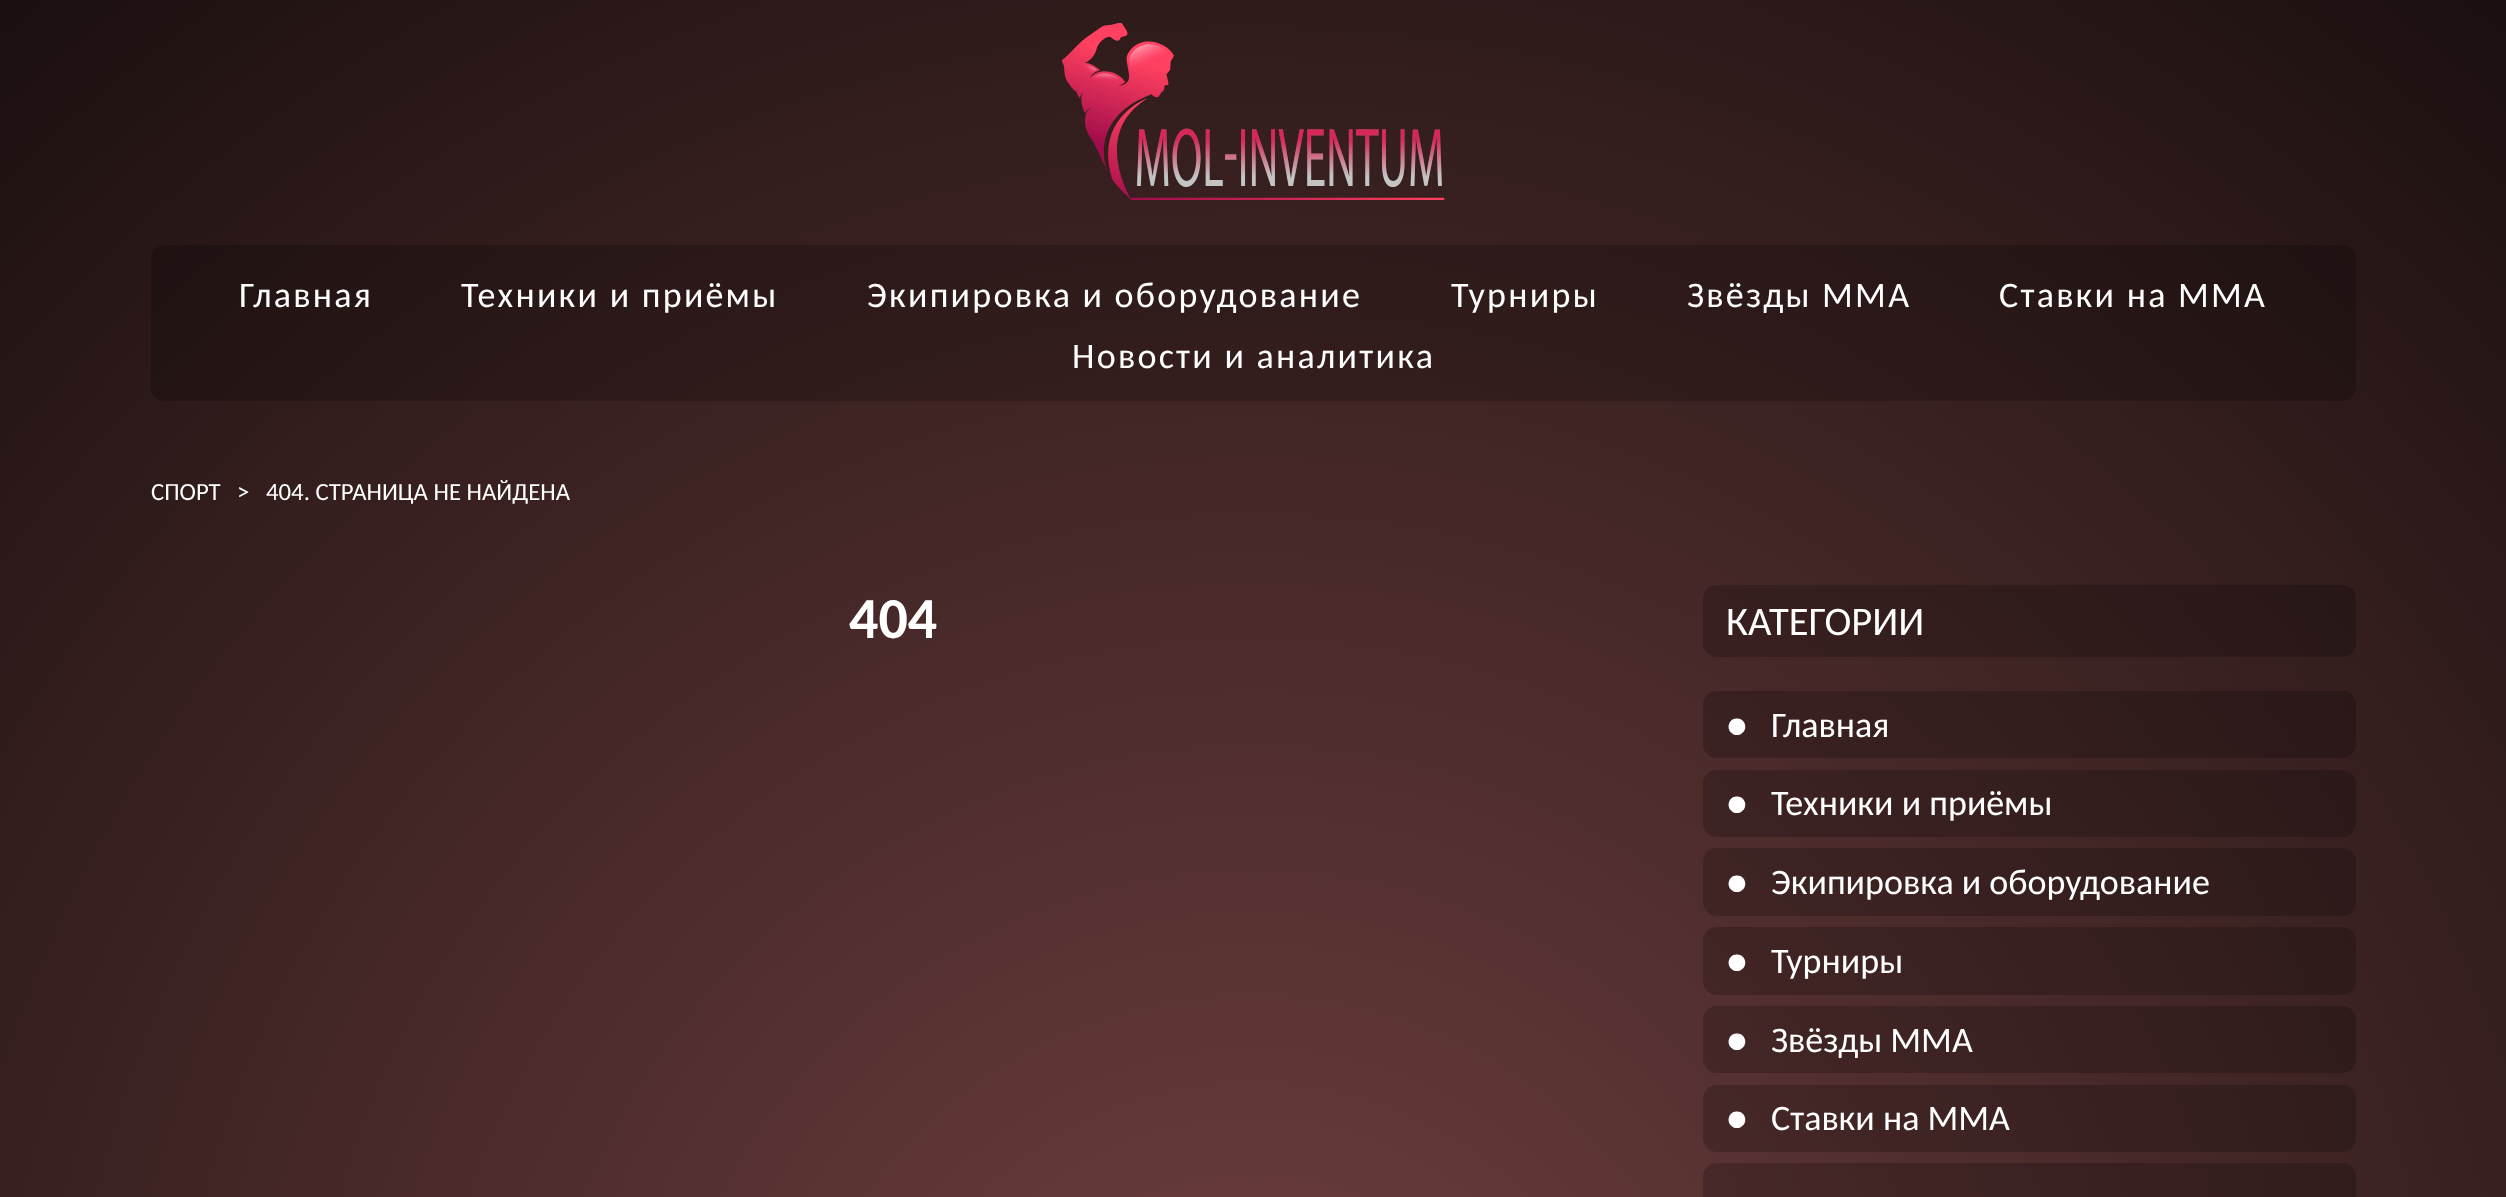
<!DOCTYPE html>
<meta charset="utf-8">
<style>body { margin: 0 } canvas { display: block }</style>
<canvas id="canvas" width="2506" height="1197"></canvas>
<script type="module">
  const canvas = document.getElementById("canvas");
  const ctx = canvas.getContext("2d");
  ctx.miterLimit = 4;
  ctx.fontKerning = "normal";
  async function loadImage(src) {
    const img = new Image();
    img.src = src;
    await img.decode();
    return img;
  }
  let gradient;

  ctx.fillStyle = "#ffffff";
  ctx.fillRect(0, 0, 2506, 1197);
  gradient = ctx.createRadialGradient(1253, 1469, 0, 1253, 1469, 2535);
  gradient.addColorStop(0, "#714040");
  gradient.addColorStop(1, "#000000");
  ctx.fillStyle = gradient;
  ctx.fillRect(0, 0, 2506, 1197);
  ctx.drawImage(await loadImage("img1.png"), 1062, 23, 383, 177);
  ctx.fillStyle = "rgba(0, 0, 0, 0.2)";
  ctx.beginPath();
  ctx.roundRect(151, 245, 2205, 156, 14);
  ctx.fill();
  ctx.letterSpacing = "2.25px";
  ctx.font = "36px Carlito";
  ctx.fillStyle = "#ffffff";
  ctx.fillText("Главная", 239, 307);
  ctx.fillText("Техники и приёмы", 461, 307);
  ctx.fillText("Экипировка и оборудование", 867, 307);
  ctx.fillText("Турниры", 1451, 307);
  ctx.fillText("Звёзды ММА", 1687, 307);
  ctx.fillText("Ставки на ММА", 1999, 307);
  ctx.fillText("Новости и аналитика", 1072, 368);
  ctx.letterSpacing = "0px";
  ctx.font = "24.75px Carlito";
  ctx.fillText("СПОРТ", 151, 500);
  ctx.fillText(">", 237, 500);
  ctx.fillText("404. СТРАНИЦА НЕ НАЙДЕНА", 266, 500);
  ctx.font = "bold 58px Carlito";
  ctx.fillText("404", 849, 638);
  ctx.fillStyle = "rgba(0, 0, 0, 0.2)";
  ctx.beginPath();
  ctx.roundRect(1703, 585, 653, 72, 14);
  ctx.fill();
  ctx.font = "40.5px Carlito";
  ctx.fillStyle = "#ffffff";
  ctx.fillText("КАТЕГОРИИ", 1726, 635);
  ctx.fillStyle = "rgba(0, 0, 0, 0.2)";
  ctx.beginPath();
  ctx.roundRect(1703, 691, 653, 67, 14);
  ctx.fill();
  ctx.font = "36px Carlito";
  ctx.fillStyle = "#ffffff";
  ctx.fillText("●", 1726, 737);
  ctx.fillText("Главная", 1771, 737);
  ctx.fillStyle = "rgba(0, 0, 0, 0.2)";
  ctx.beginPath();
  ctx.roundRect(1703, 770, 653, 67, 14);
  ctx.fill();
  ctx.fillStyle = "#ffffff";
  ctx.fillText("●", 1726, 815);
  ctx.fillText("Техники и приёмы", 1771, 815);
  ctx.fillStyle = "rgba(0, 0, 0, 0.2)";
  ctx.beginPath();
  ctx.roundRect(1703, 848, 653, 68, 14);
  ctx.fill();
  ctx.fillStyle = "#ffffff";
  ctx.fillText("●", 1726, 894);
  ctx.fillText("Экипировка и оборудование", 1771, 894);
  ctx.fillStyle = "rgba(0, 0, 0, 0.2)";
  ctx.beginPath();
  ctx.roundRect(1703, 927, 653, 68, 14);
  ctx.fill();
  ctx.fillStyle = "#ffffff";
  ctx.fillText("●", 1726, 973);
  ctx.fillText("Турниры", 1771, 973);
  ctx.fillStyle = "rgba(0, 0, 0, 0.2)";
  ctx.beginPath();
  ctx.roundRect(1703, 1006, 653, 67, 14);
  ctx.fill();
  ctx.fillStyle = "#ffffff";
  ctx.fillText("●", 1726, 1052);
  ctx.fillText("Звёзды ММА", 1771, 1052);
  ctx.fillStyle = "rgba(0, 0, 0, 0.2)";
  ctx.beginPath();
  ctx.roundRect(1703, 1085, 653, 67, 14);
  ctx.fill();
  ctx.fillStyle = "#ffffff";
  ctx.fillText("●", 1726, 1130);
  ctx.fillText("Ставки на ММА", 1771, 1130);
  ctx.fillStyle = "rgba(0, 0, 0, 0.2)";
  ctx.beginPath();
  ctx.roundRect(1703, 1163, 653, 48, 14);
  ctx.fill();
</script>
